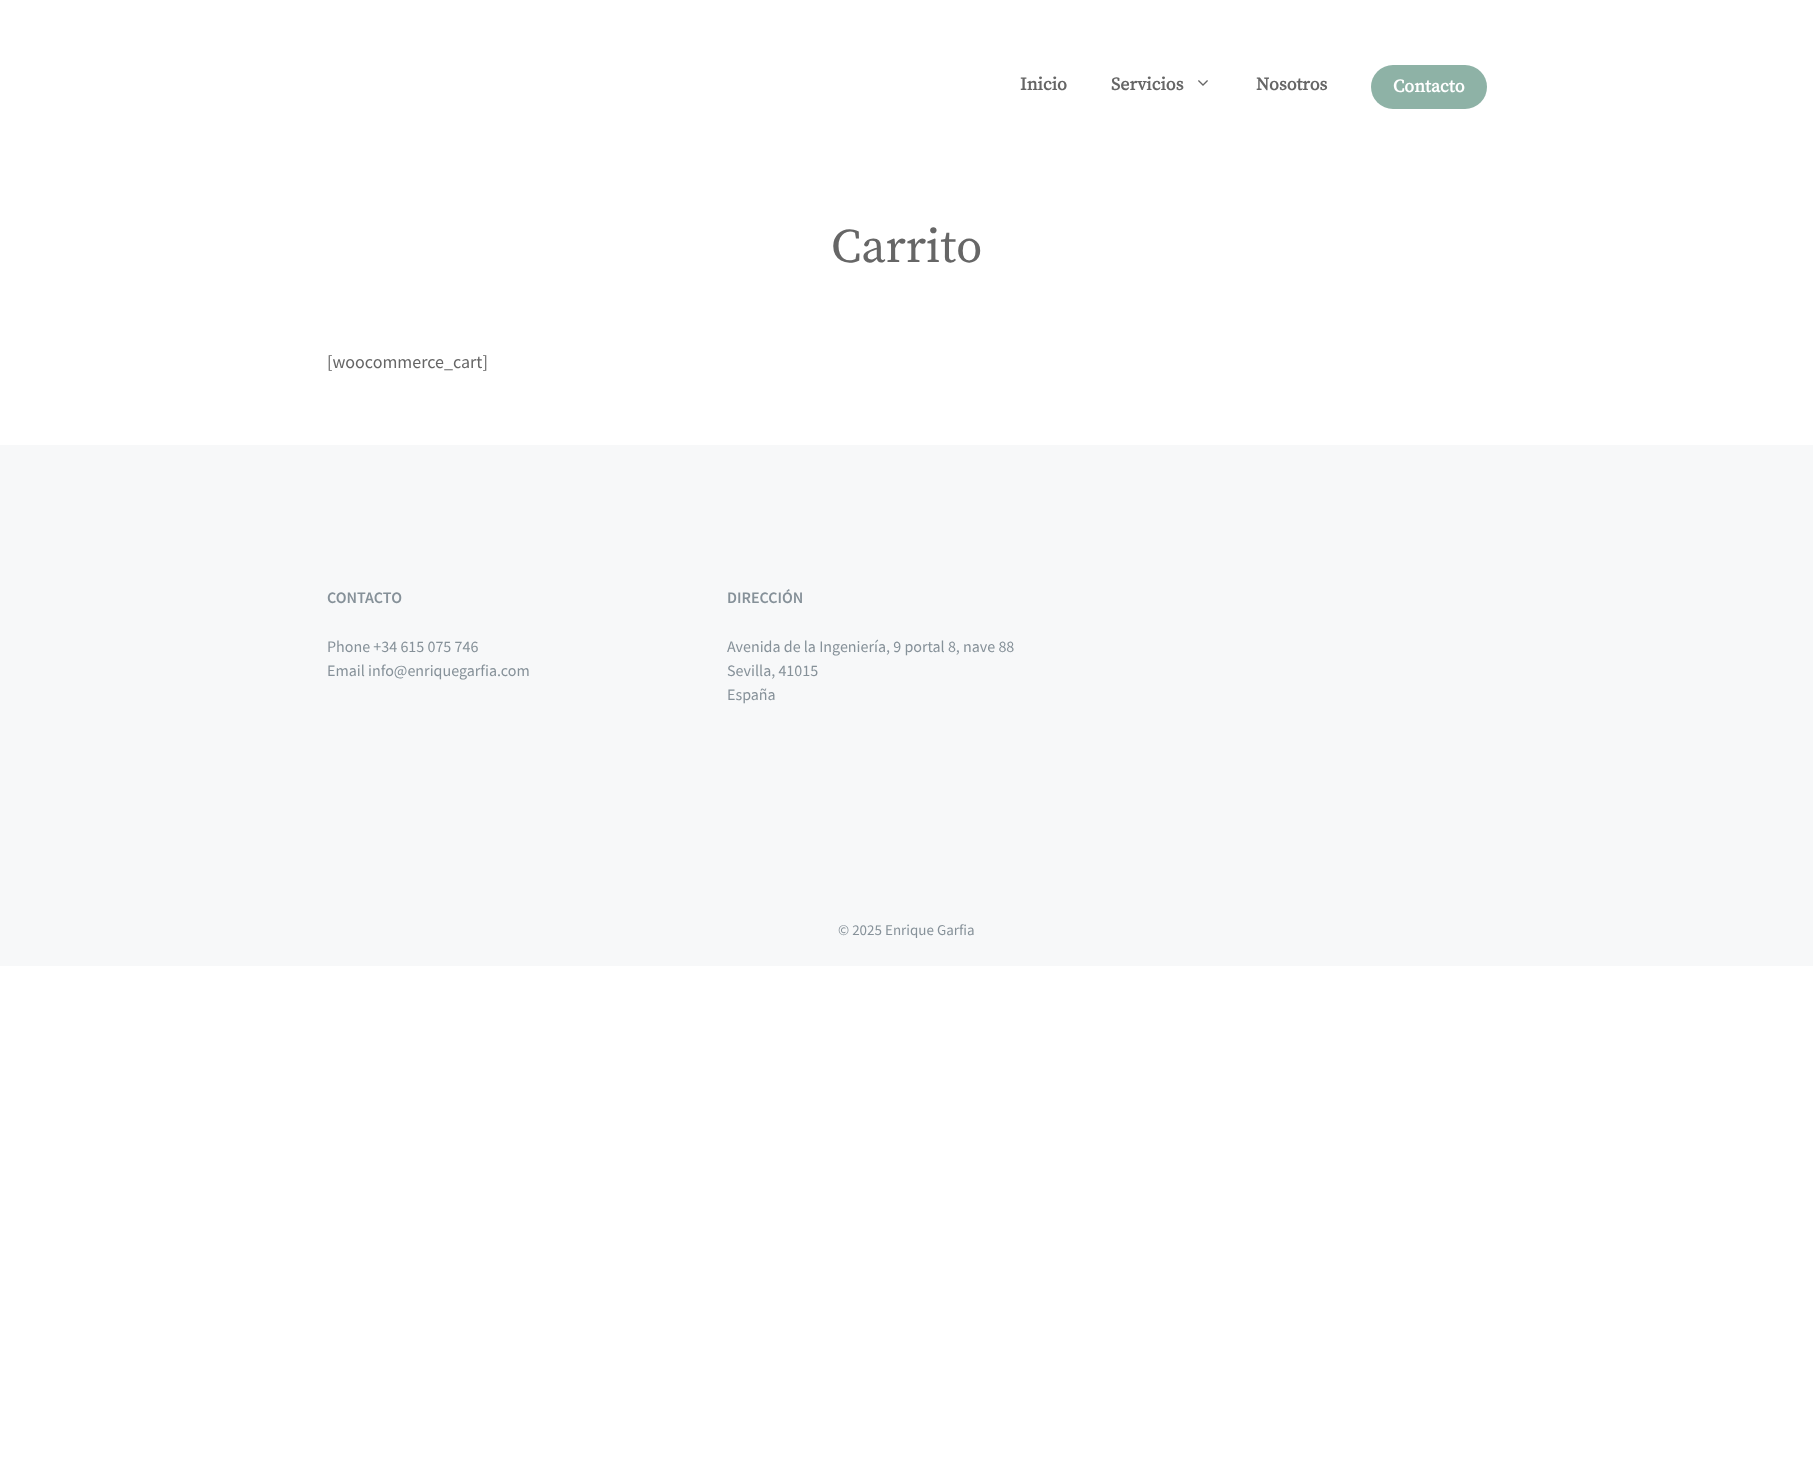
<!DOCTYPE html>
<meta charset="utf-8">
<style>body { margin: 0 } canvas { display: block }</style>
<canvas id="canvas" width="1813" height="1459"></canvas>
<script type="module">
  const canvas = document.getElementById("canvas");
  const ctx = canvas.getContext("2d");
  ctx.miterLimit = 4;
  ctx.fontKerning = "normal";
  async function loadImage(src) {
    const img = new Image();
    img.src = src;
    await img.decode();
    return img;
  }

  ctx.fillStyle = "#ffffff";
  ctx.fillRect(0, 0, 1813, 1459);
  ctx.font = "bold 18px Source Serif Pro";
  ctx.fillStyle = "#666666";
  ctx.fillText("Inicio", 1020, 90);
  ctx.fillText("Servicios", 1111, 90);
  ctx.drawImage(await loadImage("img1.png"), 1198, 80, 10, 6);
  ctx.fillText("Nosotros", 1256, 90);
  ctx.fillStyle = "#8eb2a6";
  ctx.beginPath();
  ctx.roundRect(1371, 65, 116, 44, 22);
  ctx.fill();
  ctx.fillStyle = "#ffffff";
  ctx.fillText("Contacto", 1393, 92);
  ctx.font = "48px Source Serif Pro";
  ctx.fillStyle = "#666666";
  ctx.fillText("Carrito", 831, 262);
  ctx.font = "18px Source Sans Pro";
  ctx.fillText("[woocommerce_cart]", 327, 368);
  ctx.fillStyle = "#f7f8f9";
  ctx.fillRect(0, 445, 1813, 521);
  ctx.font = "600 16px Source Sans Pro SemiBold";
  ctx.fillStyle = "#869199";
  ctx.fillText("CONTACTO", 327, 603);
  ctx.font = "16px Source Sans Pro";
  ctx.fillText("Phone +34 615 075 746", 327, 652);
  ctx.fillText("Email info@enriquegarfia.com", 327, 676);
  ctx.font = "600 16px Source Sans Pro SemiBold";
  ctx.fillText("DIRECCIÓN", 727, 603);
  ctx.font = "16px Source Sans Pro";
  ctx.fillText("Avenida de la Ingeniería, 9 portal 8, nave 88", 727, 652);
  ctx.fillText("Sevilla, 41015", 727, 676);
  ctx.fillText("España", 727, 700);
  ctx.font = "15px Source Sans Pro";
  ctx.fillText("© 2025 Enrique Garfia", 838, 935);
</script>
